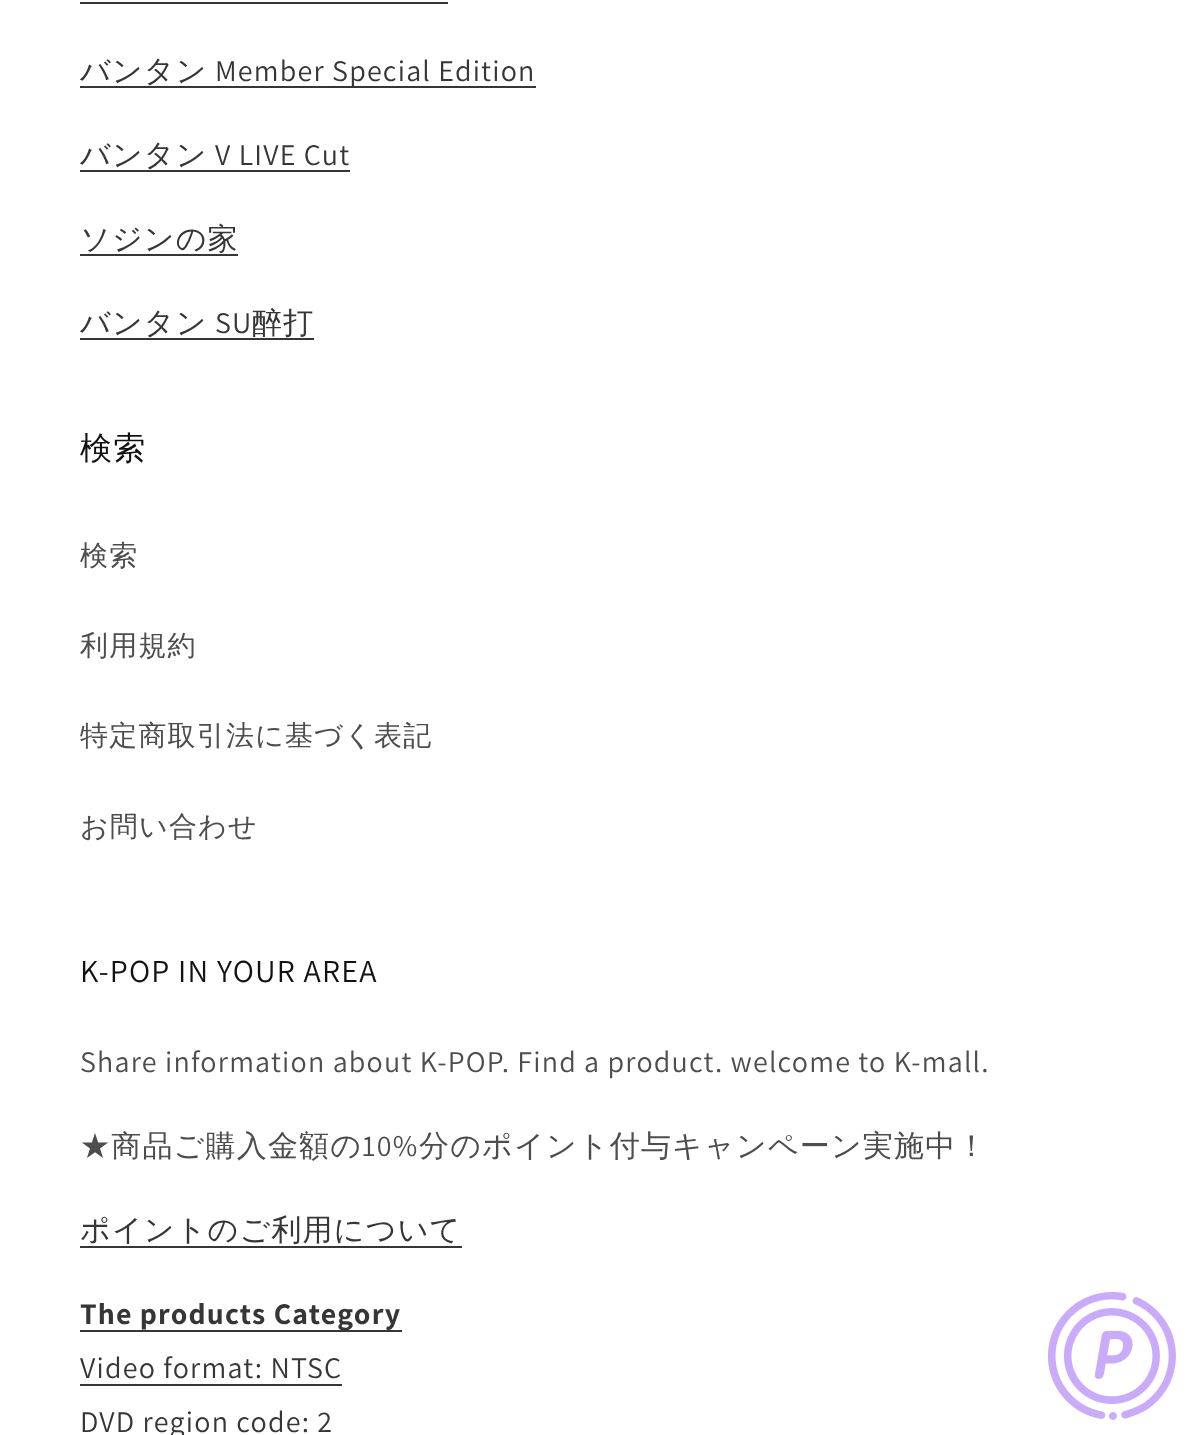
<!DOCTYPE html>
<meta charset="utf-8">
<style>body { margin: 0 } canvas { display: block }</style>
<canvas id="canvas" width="1191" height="1435"></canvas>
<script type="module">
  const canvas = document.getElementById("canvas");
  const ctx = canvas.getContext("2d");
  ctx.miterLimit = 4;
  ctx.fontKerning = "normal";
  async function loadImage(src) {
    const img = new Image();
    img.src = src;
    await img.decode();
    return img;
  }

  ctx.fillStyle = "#ffffff";
  ctx.fillRect(0, 0, 1191, 1435);
  ctx.fillStyle = "#363636";
  ctx.fillRect(80, 2, 368, 2);
  ctx.letterSpacing = "1.2px";
  ctx.font = "500 30px WenQuanYi Zen Hei";
  ctx.fillText("バンタン", 80, 81);
  ctx.fillRect(80, 86, 456, 2);
  ctx.font = "30px Assistant";
  ctx.fillText("Member Special Edition", 215, 81);
  ctx.font = "500 30px WenQuanYi Zen Hei";
  ctx.fillText("バンタン", 80, 165);
  ctx.fillRect(80, 170, 270, 2);
  ctx.font = "30px Assistant";
  ctx.fillText("V LIVE Cut", 215, 165);
  ctx.font = "500 30px WenQuanYi Zen Hei";
  ctx.fillText("ソジンの家", 80, 249);
  ctx.fillRect(80, 254, 158, 2);
  ctx.fillText("バンタン", 80, 333);
  ctx.fillRect(80, 338, 234, 2);
  ctx.font = "30px Assistant";
  ctx.fillText("SU", 215, 333);
  ctx.font = "500 30px WenQuanYi Zen Hei";
  ctx.fillText("醉打", 252, 333);
  ctx.font = "500 32px WenQuanYi Zen Hei";
  ctx.fillStyle = "#121212";
  ctx.fillText("検索", 80, 459);
  ctx.font = "500 28px WenQuanYi Zen Hei";
  ctx.fillStyle = "#4d4d4d";
  ctx.fillText("検索", 80, 565);
  ctx.fillText("利用規約", 80, 655);
  ctx.fillText("特定商取引法に基づく表記", 80, 745);
  ctx.fillText("お問い合わせ", 80, 836);
  ctx.font = "32px Assistant";
  ctx.fillStyle = "#121212";
  ctx.fillText("K-POP IN YOUR AREA", 80, 982);
  ctx.font = "30px Assistant";
  ctx.fillStyle = "#4d4d4d";
  ctx.fillText("Share information about K-POP. Find a product. welcome to K-mall.", 80, 1072);
  ctx.font = "500 30px WenQuanYi Zen Hei";
  ctx.fillText("★商品ご購入金額の", 80, 1156);
  ctx.font = "30px Assistant";
  ctx.fillText("10%", 362, 1156);
  ctx.font = "500 30px WenQuanYi Zen Hei";
  ctx.fillText("分のポイント付与キャンペーン実施中！", 419, 1156);
  ctx.fillStyle = "#363636";
  ctx.fillText("ポイントのご利用について", 80, 1240);
  ctx.fillRect(80, 1246, 382, 2);
  ctx.fillRect(80, 1330, 322, 2);
  ctx.font = "bold 30px Assistant";
  ctx.fillText("The products Category", 80, 1324);
  ctx.font = "30px Assistant";
  ctx.fillText("Video format: NTSC", 80, 1378);
  ctx.fillRect(80, 1384, 262, 2);
  ctx.fillText("DVD region code: 2", 80, 1432);
  ctx.drawImage(await loadImage("img1.png"), 1048, 1292, 128, 128);
</script>
